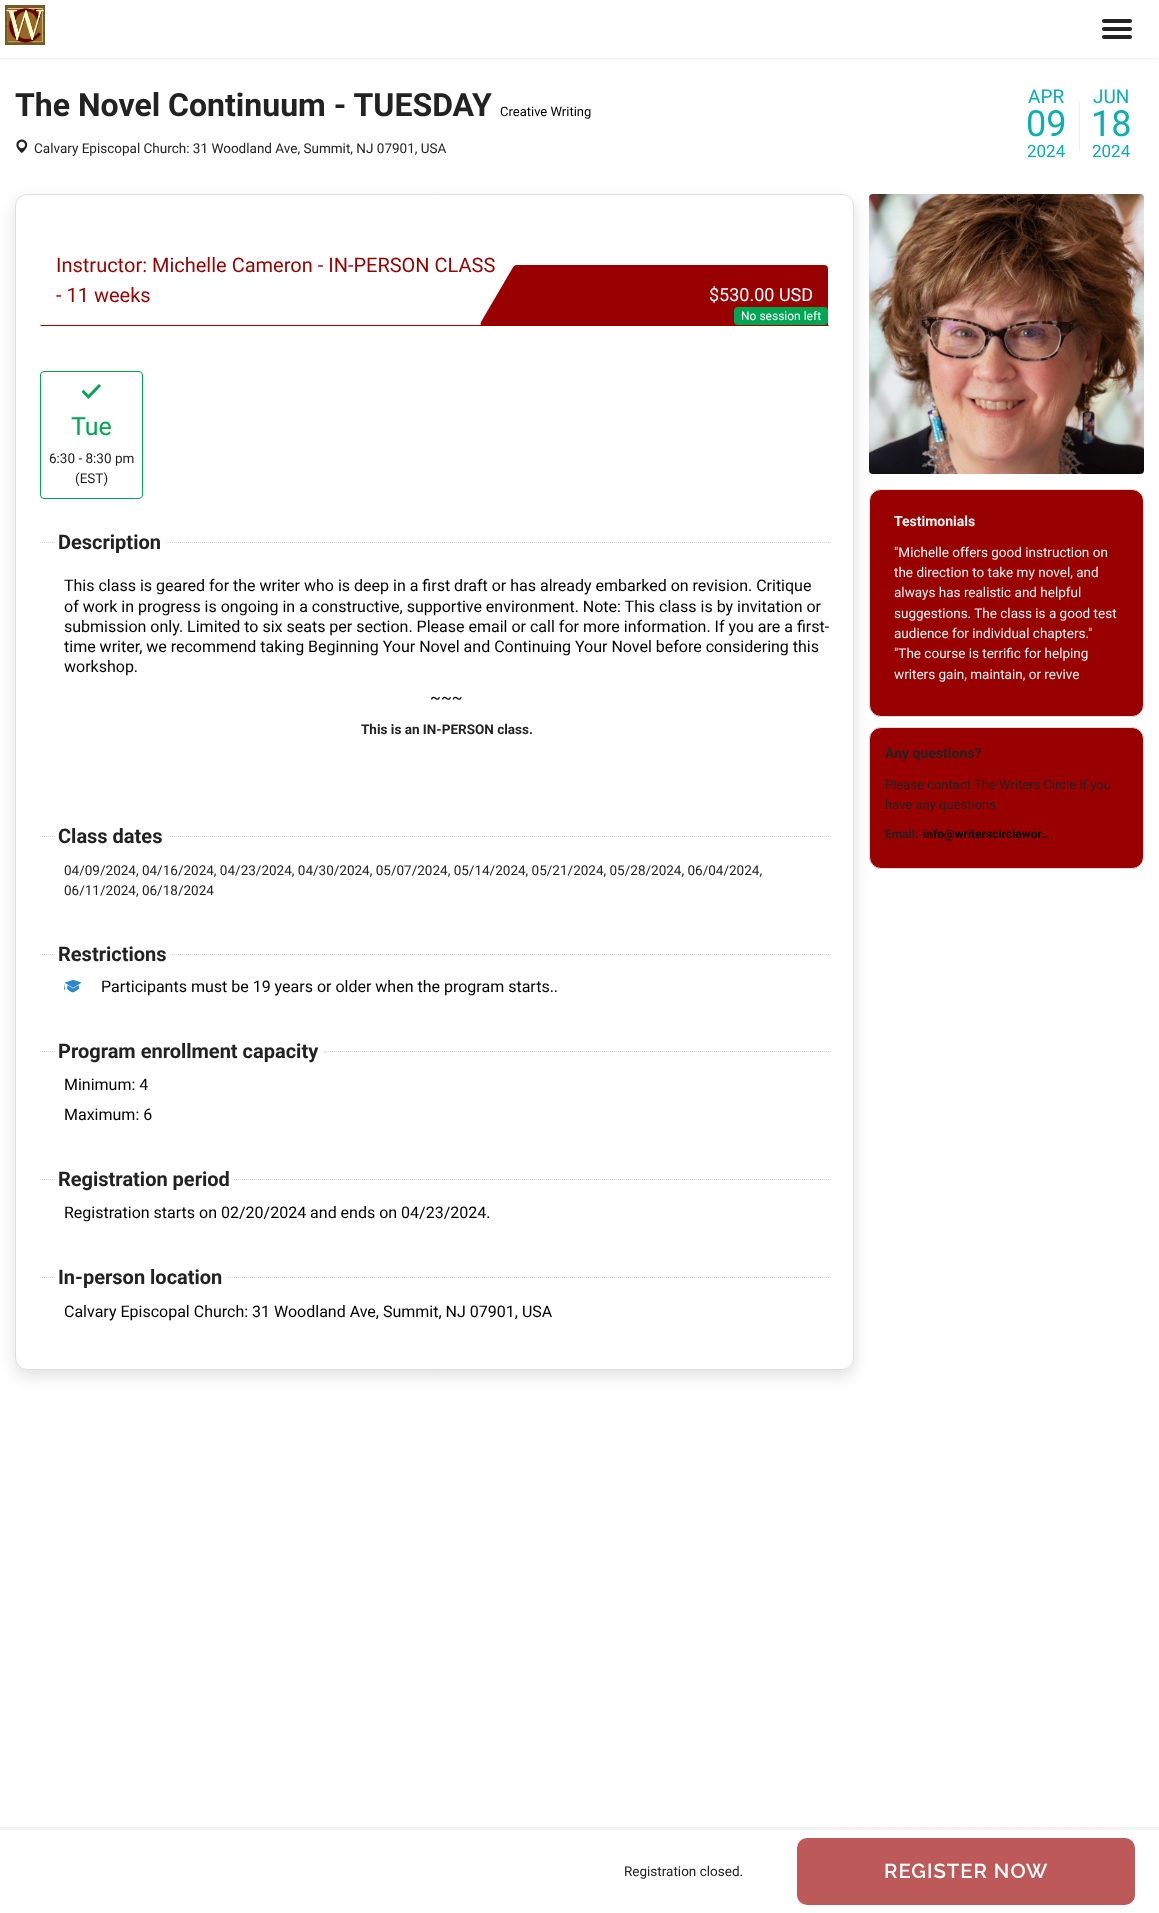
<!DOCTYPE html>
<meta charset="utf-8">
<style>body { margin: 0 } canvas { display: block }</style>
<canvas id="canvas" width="1159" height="1913"></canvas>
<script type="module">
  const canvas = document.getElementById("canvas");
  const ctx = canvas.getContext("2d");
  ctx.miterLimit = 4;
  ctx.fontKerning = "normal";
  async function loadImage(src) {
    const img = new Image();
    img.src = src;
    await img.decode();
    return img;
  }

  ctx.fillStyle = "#ffffff";
  ctx.fillRect(0, 0, 1159, 1913);
  ctx.fillStyle = "rgba(0, 0, 0, 0.07)";
  ctx.filter = "blur(1px)";
  ctx.beginPath();
  ctx.roundRect(0, 1, 1159, 58, 2);
  ctx.fill();
  ctx.filter = "none";
  ctx.fillStyle = "#ffffff";
  ctx.beginPath();
  ctx.roundRect(0, 0, 1159, 58, 2);
  ctx.fill();
  ctx.drawImage(await loadImage("img1.png"), 5, 5, 40, 40);
  ctx.fillStyle = "#222222";
  ctx.beginPath();
  ctx.roundRect(1102, 19, 30, 4, 2);
  ctx.fill();
  ctx.beginPath();
  ctx.roundRect(1102, 27, 30, 4, 2);
  ctx.fill();
  ctx.beginPath();
  ctx.roundRect(1102, 35, 30, 4, 2);
  ctx.fill();
  ctx.font = "bold 32px Roboto";
  ctx.fillText("The Novel Continuum - TUESDAY", 15, 116);
  ctx.font = "13px Roboto";
  ctx.fillStyle = "#000000";
  ctx.fillText("Creative Writing", 500, 116);
  ctx.drawImage(await loadImage("img2.png"), 16, 139, 12, 14);
  ctx.font = "13.52px Roboto";
  ctx.fillStyle = "#222222";
  ctx.fillText("Calvary Episcopal Church: 31 Woodland Ave, Summit, NJ 07901, USA", 34, 153);
  ctx.font = "19px Roboto";
  ctx.fillStyle = "#0aafaf";
  ctx.fillText("APR", 1028, 103);
  ctx.font = "36px Roboto";
  ctx.fillText("09", 1026, 136);
  ctx.font = "17px Roboto";
  ctx.fillText("2024", 1027, 157);
  ctx.fillStyle = "#eeeeee";
  ctx.fillRect(1079, 101, 1, 50);
  ctx.font = "19px Roboto";
  ctx.fillStyle = "#0aafaf";
  ctx.fillText("JUN", 1093, 103);
  ctx.font = "36px Roboto";
  ctx.fillText("18", 1091, 136);
  ctx.font = "17px Roboto";
  ctx.fillText("2024", 1092, 157);
  ctx.save();
  ctx.beginPath();
  ctx.moveTo(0, 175);
  ctx.lineTo(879, 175);
  ctx.lineTo(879, 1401);
  ctx.lineTo(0, 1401);
  ctx.closePath();
  ctx.moveTo(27, 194);
  ctx.lineTo(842, 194);
  ctx.bezierCurveTo(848.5, 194, 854, 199.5, 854, 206);
  ctx.lineTo(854, 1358);
  ctx.bezierCurveTo(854, 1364.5, 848.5, 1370, 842, 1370);
  ctx.lineTo(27, 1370);
  ctx.bezierCurveTo(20.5, 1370, 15, 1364.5, 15, 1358);
  ctx.lineTo(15, 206);
  ctx.bezierCurveTo(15, 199.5, 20.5, 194, 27, 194);
  ctx.closePath();
  ctx.clip("evenodd");
  ctx.fillStyle = "rgba(0, 0, 0, 0.12)";
  ctx.filter = "blur(8px)";
  ctx.beginPath();
  ctx.roundRect(15, 200, 839, 1176, 12);
  ctx.fill();
  ctx.filter = "none";
  ctx.restore();
  ctx.beginPath();
  ctx.roundRect(15.5, 194.5, 838, 1175, 11.5);
  ctx.strokeStyle = "#dddddd";
  ctx.stroke();
  ctx.fillStyle = "#990000";
  ctx.beginPath();
  ctx.moveTo(829, 326);
  ctx.lineTo(40, 326);
  ctx.lineTo(41, 325);
  ctx.lineTo(828, 325);
  ctx.closePath();
  ctx.fill();
  ctx.font = "20px Roboto";
  ctx.fillText("Instructor: Michelle Cameron - IN-PERSON CLASS", 56, 272);
  ctx.fillText("- 11 weeks", 56, 302);
  ctx.beginPath();
  ctx.roundRect(513, 265, 315, 60, [4, 4, 0, 4]);
  ctx.fill();
  ctx.beginPath();
  ctx.moveTo(518, 265);
  ctx.lineTo(574, 265);
  ctx.lineTo(539, 326);
  ctx.lineTo(483, 326);
  ctx.bezierCurveTo(481, 326, 480, 325, 481, 322);
  ctx.lineTo(512, 269);
  ctx.bezierCurveTo(513, 267, 516, 265, 518, 265);
  ctx.closePath();
  ctx.fill();
  ctx.font = "18px Roboto";
  ctx.fillStyle = "#ffffff";
  ctx.fillText("$530.00 USD", 709, 301);
  ctx.fillStyle = "#00a651";
  ctx.beginPath();
  ctx.roundRect(734, 307, 94, 18, 4);
  ctx.fill();
  ctx.font = "12px Roboto";
  ctx.fillStyle = "#ffffff";
  ctx.fillText("No session left", 741, 320);
  ctx.beginPath();
  ctx.roundRect(40.5, 371.5, 102, 127, 3.5);
  ctx.strokeStyle = "#00a651";
  ctx.stroke();
  ctx.drawImage(await loadImage("img3.png"), 81, 384, 20, 15);
  ctx.font = "25px Roboto";
  ctx.fillStyle = "#00a651";
  ctx.fillText("Tue", 71, 435);
  ctx.font = "13.52px Roboto";
  ctx.fillStyle = "#222222";
  ctx.fillText("6:30 - 8:30 pm", 49, 463);
  ctx.fillText("(EST)", 75, 483);
  ctx.beginPath();
  ctx.moveTo(40, 542.5);
  ctx.lineTo(829, 542.5);
  ctx.strokeStyle = "#d0d2d7";
  ctx.setLineDash([1, 1]);
  ctx.stroke();
  ctx.fillStyle = "#ffffff";
  ctx.fillRect(54, 542, 111, 1);
  ctx.font = "bold 20px Roboto";
  ctx.fillStyle = "#222222";
  ctx.fillText("Description", 58, 549);
  ctx.font = "16px Roboto";
  ctx.fillStyle = "#000000";
  ctx.fillText("This class is geared for the writer who is deep in a first draft or has already embarked on revision. Critique", 64, 591);
  ctx.fillText("of work in progress is ongoing in a constructive, supportive environment. Note: This class is by invitation or", 64, 612);
  ctx.fillText("submission only. Limited to six seats per section. Please email or call for more information. If you are a first-", 64, 632);
  ctx.fillText("time writer, we recommend taking Beginning Your Novel and Continuing Your Novel before considering this", 64, 652);
  ctx.fillText("workshop.", 64, 672);
  ctx.fillText("~~~", 430, 703);
  ctx.font = "bold 13.52px Roboto";
  ctx.fillStyle = "#222222";
  ctx.fillText("This is an IN-PERSON class.", 361, 734);
  ctx.beginPath();
  ctx.moveTo(40, 836.5);
  ctx.lineTo(829, 836.5);
  ctx.stroke();
  ctx.fillStyle = "#ffffff";
  ctx.fillRect(54, 836, 113, 1);
  ctx.font = "bold 20px Roboto";
  ctx.fillStyle = "#222222";
  ctx.fillText("Class dates", 58, 843);
  ctx.font = "13.52px Roboto";
  ctx.fillText("04/09/2024, 04/16/2024, 04/23/2024, 04/30/2024, 05/07/2024, 05/14/2024, 05/21/2024, 05/28/2024, 06/04/2024,", 64, 875);
  ctx.fillText("06/11/2024, 06/18/2024", 64, 895);
  ctx.beginPath();
  ctx.moveTo(40, 954.5);
  ctx.lineTo(829, 954.5);
  ctx.stroke();
  ctx.fillStyle = "#ffffff";
  ctx.fillRect(54, 954, 117, 1);
  ctx.font = "bold 20px Roboto";
  ctx.fillStyle = "#222222";
  ctx.fillText("Restrictions", 58, 961);
  ctx.drawImage(await loadImage("img4.png"), 64, 979, 18, 14);
  ctx.font = "16px Roboto";
  ctx.fillStyle = "#000000";
  ctx.fillText("Participants must be 19 years or older when the program starts..", 101, 992);
  ctx.beginPath();
  ctx.moveTo(40, 1051.5);
  ctx.lineTo(829, 1051.5);
  ctx.stroke();
  ctx.fillStyle = "#ffffff";
  ctx.fillRect(54, 1051, 269, 1);
  ctx.font = "bold 20px Roboto";
  ctx.fillStyle = "#222222";
  ctx.fillText("Program enrollment capacity", 58, 1058);
  ctx.font = "16px Roboto";
  ctx.fillStyle = "#000000";
  ctx.fillText("Minimum: 4", 64, 1090);
  ctx.fillText("Maximum: 6", 64, 1120);
  ctx.beginPath();
  ctx.moveTo(40, 1179.5);
  ctx.lineTo(829, 1179.5);
  ctx.stroke();
  ctx.fillStyle = "#ffffff";
  ctx.fillRect(54, 1179, 179, 1);
  ctx.font = "bold 20px Roboto";
  ctx.fillStyle = "#222222";
  ctx.fillText("Registration period", 58, 1186);
  ctx.font = "16px Roboto";
  ctx.fillStyle = "#000000";
  ctx.fillText("Registration starts on 02/20/2024 and ends on 04/23/2024.", 64, 1218);
  ctx.beginPath();
  ctx.moveTo(40, 1277.5);
  ctx.lineTo(829, 1277.5);
  ctx.stroke();
  ctx.fillStyle = "#ffffff";
  ctx.fillRect(54, 1277, 173, 1);
  ctx.font = "bold 20px Roboto";
  ctx.fillStyle = "#222222";
  ctx.fillText("In-person location", 58, 1284);
  ctx.font = "16px Roboto";
  ctx.fillStyle = "#000000";
  ctx.fillText("Calvary Episcopal Church: 31 Woodland Ave, Summit, NJ 07901, USA", 64, 1317);
  ctx.drawImage(await loadImage("img5.png"), 869, 194, 275, 280);
  ctx.fillStyle = "#990000";
  ctx.beginPath();
  ctx.roundRect(869.5, 489.5, 274, 227, 11.5);
  ctx.fill();
  ctx.strokeStyle = "#dddddd";
  ctx.setLineDash([]);
  ctx.stroke();
  ctx.font = "bold 14px Roboto";
  ctx.fillStyle = "#f2f2f2";
  ctx.fillText("Testimonials", 894, 526);
  ctx.font = "13.52px Roboto";
  ctx.fillText("\"Michelle offers good instruction on", 894, 557);
  ctx.fillText("the direction to take my novel, and", 894, 577);
  ctx.fillText("always has realistic and helpful", 894, 597);
  ctx.fillText("suggestions. The class is a good test", 894, 618);
  ctx.fillText("audience for individual chapters.\"", 894, 638);
  ctx.fillText("\"The course is terrific for helping", 894, 658);
  ctx.fillText("writers gain, maintain, or revive", 894, 679);
  ctx.fillStyle = "#990000";
  ctx.beginPath();
  ctx.roundRect(869.5, 727.5, 274, 141, 11.5);
  ctx.fill();
  ctx.stroke();
  ctx.font = "bold 14px Roboto";
  ctx.fillStyle = "#222222";
  ctx.fillText("Any questions?", 885, 758);
  ctx.font = "13px Roboto";
  ctx.fillText("Please contact The Writers Circle if you", 885, 789);
  ctx.fillText("have any questions.", 885, 809);
  ctx.font = "bold 12px Roboto";
  ctx.fillText("Email:", 885, 838);
  ctx.fillStyle = "#000000";
  ctx.fillText("info@writerscirclewor…", 923, 838);
  ctx.fillStyle = "#f2f2f2";
  ctx.fillRect(0, 1827, 1159, 3);
  ctx.font = "13.52px Roboto";
  ctx.fillStyle = "#222222";
  ctx.fillText("Registration closed.", 624, 1876);
  ctx.fillStyle = "#bd5959";
  ctx.beginPath();
  ctx.roundRect(797, 1838, 338, 67, 10);
  ctx.fill();
  ctx.letterSpacing = "1px";
  ctx.font = "600 20.25px Raleway";
  ctx.fillStyle = "#ffffff";
  ctx.fillText("REGISTER NOW", 884, 1878);
</script>
